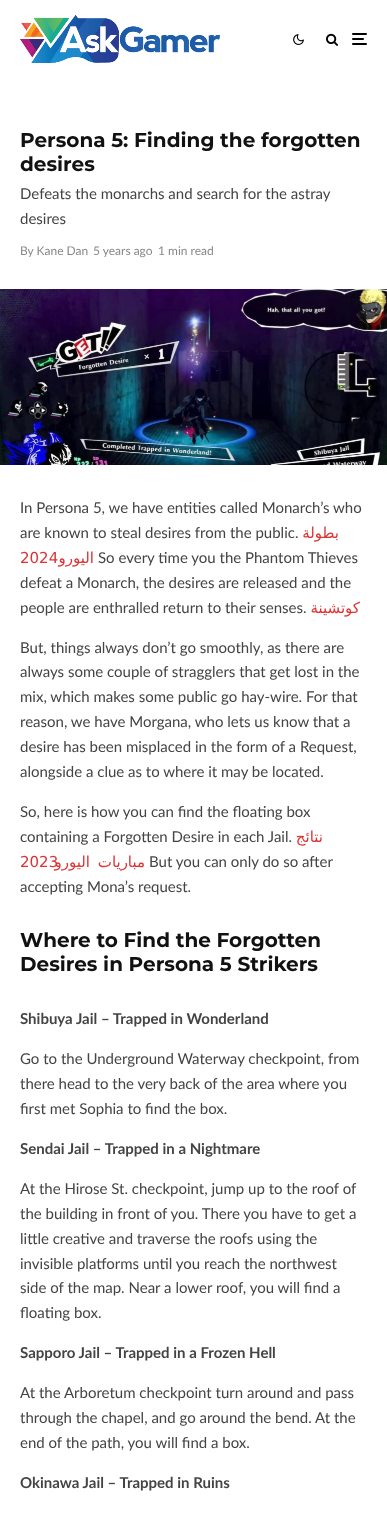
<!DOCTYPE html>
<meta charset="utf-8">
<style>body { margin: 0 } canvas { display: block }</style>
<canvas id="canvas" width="387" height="1519"></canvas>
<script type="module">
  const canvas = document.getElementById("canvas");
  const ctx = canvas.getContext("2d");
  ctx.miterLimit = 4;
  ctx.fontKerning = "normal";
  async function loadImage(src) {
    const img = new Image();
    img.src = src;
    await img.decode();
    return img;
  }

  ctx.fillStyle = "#ffffff";
  ctx.fillRect(0, 0, 387, 1519);
  ctx.drawImage(await loadImage("img1.png"), 20, 15, 200, 48);
  ctx.drawImage(await loadImage("img2.png"), 293, 34, 11, 11);
  ctx.drawImage(await loadImage("img3.png"), 326, 33, 12, 13);
  ctx.fillStyle = "#000000";
  ctx.beginPath();
  ctx.roundRect(352, 38, 12, 2, 1);
  ctx.fill();
  ctx.beginPath();
  ctx.roundRect(352, 33, 15, 2, 1);
  ctx.fill();
  ctx.beginPath();
  ctx.roundRect(352, 43, 15, 2, 1);
  ctx.fill();
  ctx.font = "bold 20px Montserrat";
  ctx.fillStyle = "#111111";
  ctx.fillText("Persona 5: Finding the forgotten", 20, 147);
  ctx.fillText("desires", 20, 171);
  ctx.font = "15px Lato";
  ctx.fillStyle = "#444444";
  ctx.fillText("Defeats the monarchs and search for the astray", 20, 199);
  ctx.fillText("desires", 20, 224);
  ctx.font = "12px Lato";
  ctx.fillStyle = "#888888";
  ctx.fillText("By Kane Dan", 20, 255);
  ctx.fillText("5 years ago", 93, 255);
  ctx.fillText("1 min read", 158, 255);
  ctx.drawImage(await loadImage("img4.png"), 0, 289, 387, 176);
  ctx.font = "15px Lato";
  ctx.fillStyle = "#444444";
  ctx.fillText("In Persona 5, we have entities called Monarch’s who", 20, 513);
  ctx.fillText("are known to steal desires from the public.", 20, 538);
  ctx.direction = "rtl";
  ctx.font = "15px DejaVu Sans";
  ctx.fillStyle = "#dd3333";
  ctx.fillText("بطولة", 339, 538);
  ctx.direction = "ltr";
  ctx.fillText("2024", 20, 563);
  ctx.direction = "rtl";
  ctx.fillText("اليورو", 94, 563);
  ctx.direction = "ltr";
  ctx.font = "15px Lato";
  ctx.fillStyle = "#444444";
  ctx.fillText("So every time you the Phantom Thieves", 98, 563);
  ctx.fillText("defeat a Monarch, the desires are released and the", 20, 588);
  ctx.fillText("people are enthralled return to their senses.", 20, 613);
  ctx.direction = "rtl";
  ctx.font = "15px DejaVu Sans";
  ctx.fillStyle = "#dd3333";
  ctx.fillText("كوتشينة", 360, 613);
  ctx.direction = "ltr";
  ctx.font = "15px Lato";
  ctx.fillStyle = "#444444";
  ctx.fillText("But, things always don’t go smoothly, as there are", 20, 653);
  ctx.fillText("always some couple of stragglers that get lost in the", 20, 677);
  ctx.fillText("mix, which makes some public go hay-wire. For that", 20, 702);
  ctx.fillText("reason, we have Morgana, who lets us know that a", 20, 727);
  ctx.fillText("desire has been misplaced in the form of a Request,", 20, 752);
  ctx.fillText("alongside a clue as to where it may be located.", 20, 777);
  ctx.fillText("So, here is how you can find the floating box", 20, 817);
  ctx.fillText("containing a Forgotten Desire in each Jail.", 20, 842);
  ctx.direction = "rtl";
  ctx.font = "15px DejaVu Sans";
  ctx.fillStyle = "#dd3333";
  ctx.fillText("نتائج", 323, 842);
  ctx.direction = "ltr";
  ctx.fillText("2023", 20, 867);
  ctx.wordSpacing = "3px";
  ctx.direction = "rtl";
  ctx.fillText("مباريات اليورو", 145, 867);
  ctx.wordSpacing = "0px";
  ctx.direction = "ltr";
  ctx.font = "15px Lato";
  ctx.fillStyle = "#444444";
  ctx.fillText("But you can only do so after", 149, 867);
  ctx.fillText("accepting Mona’s request.", 20, 892);
  ctx.font = "bold 20px Montserrat";
  ctx.fillStyle = "#111111";
  ctx.fillText("Where to Find the Forgotten", 20, 947);
  ctx.fillText("Desires in Persona 5 Strikers", 20, 971);
  ctx.font = "bold 15px Lato";
  ctx.fillStyle = "#444444";
  ctx.fillText("Shibuya Jail – Trapped in Wonderland", 20, 1024);
  ctx.font = "15px Lato";
  ctx.fillText("Go to the Underground Waterway checkpoint, from", 20, 1064);
  ctx.fillText("there head to the very back of the area where you", 20, 1089);
  ctx.fillText("first met Sophia to find the box.", 20, 1114);
  ctx.font = "bold 15px Lato";
  ctx.fillText("Sendai Jail – Trapped in a Nightmare", 20, 1154);
  ctx.font = "15px Lato";
  ctx.fillText("At the Hirose St. checkpoint, jump up to the roof of", 20, 1194);
  ctx.fillText("the building in front of you. There you have to get a", 20, 1219);
  ctx.fillText("little creative and traverse the roofs using the", 20, 1244);
  ctx.fillText("invisible platforms until you reach the northwest", 20, 1269);
  ctx.fillText("side of the map. Near a lower roof, you will find a", 20, 1293);
  ctx.fillText("floating box.", 20, 1318);
  ctx.font = "bold 15px Lato";
  ctx.fillText("Sapporo Jail – Trapped in a Frozen Hell", 20, 1358);
  ctx.font = "15px Lato";
  ctx.fillText("At the Arboretum checkpoint turn around and pass", 20, 1398);
  ctx.fillText("through the chapel, and go around the bend. At the", 20, 1423);
  ctx.fillText("end of the path, you will find a box.", 20, 1448);
  ctx.font = "bold 15px Lato";
  ctx.fillText("Okinawa Jail – Trapped in Ruins", 20, 1488);
</script>
